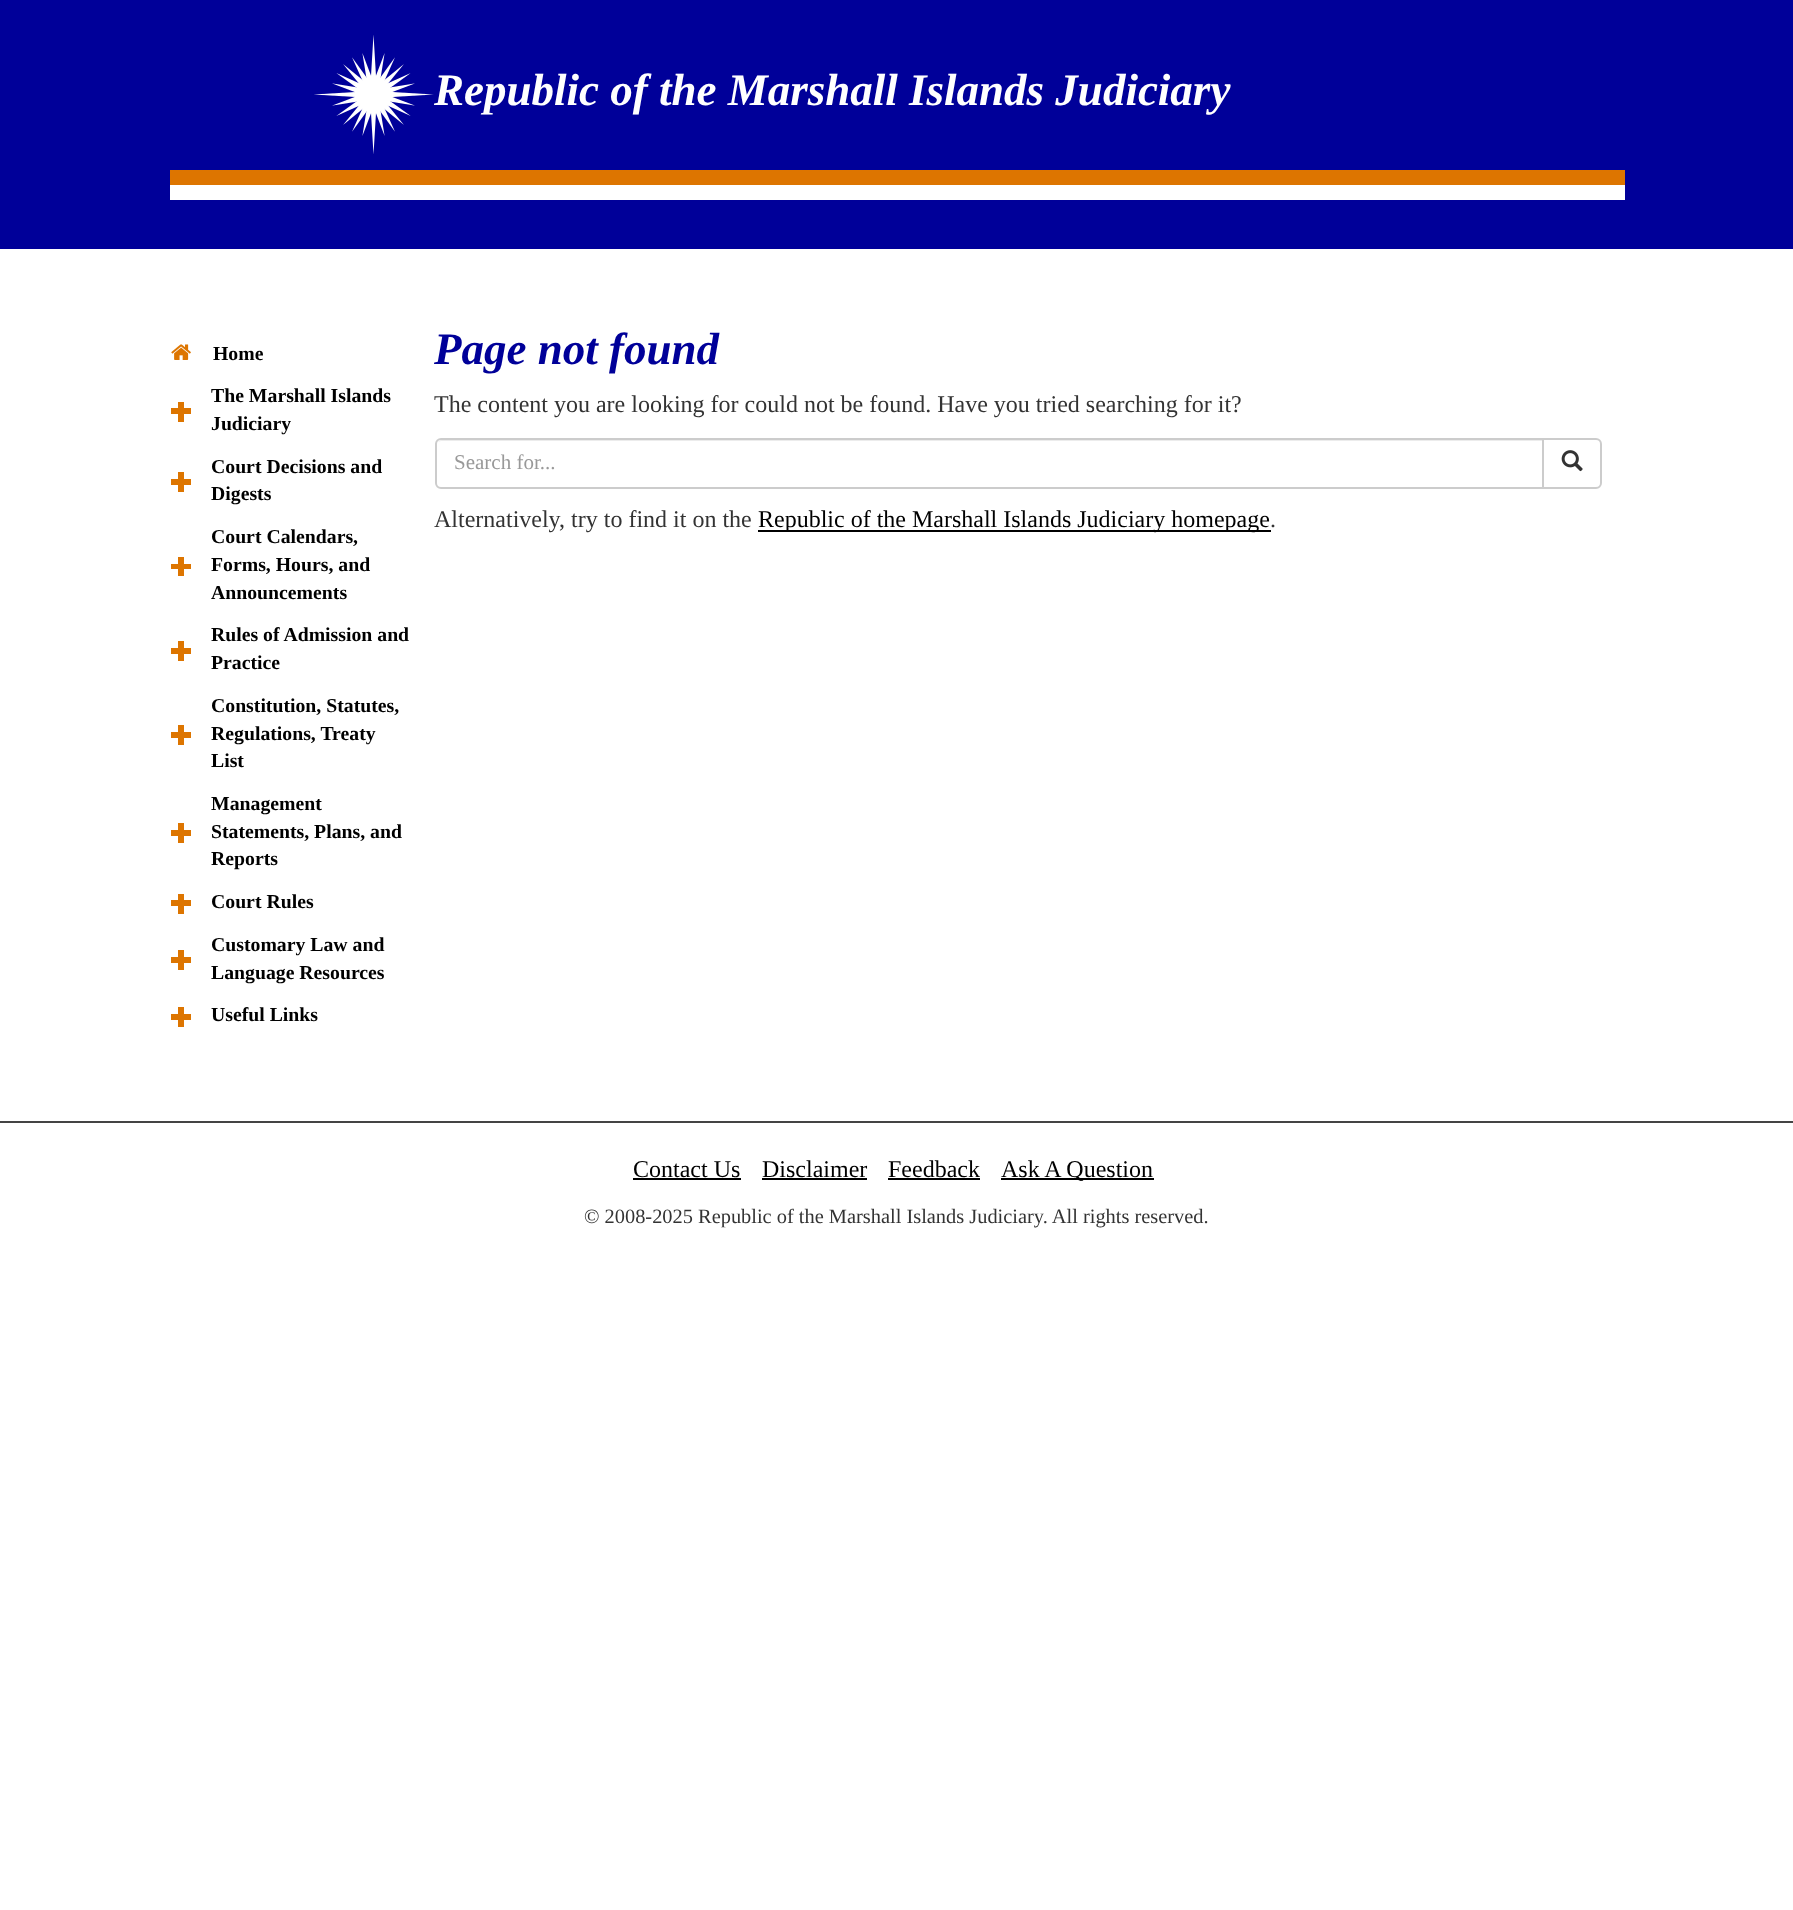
<!DOCTYPE html>
<meta charset="utf-8">
<style>body { margin: 0 } canvas { display: block }</style>
<canvas id="canvas" width="1793" height="1910"></canvas>
<script type="module">
  const canvas = document.getElementById("canvas");
  const ctx = canvas.getContext("2d");
  ctx.miterLimit = 4;
  ctx.fontKerning = "normal";
  async function loadImage(src) {
    const img = new Image();
    img.src = src;
    await img.decode();
    return img;
  }

  ctx.fillStyle = "#ffffff";
  ctx.fillRect(0, 0, 1793, 1910);
  ctx.fillStyle = "#000099";
  ctx.fillRect(0, 0, 1793, 249);
  ctx.drawImage(await loadImage("img1.png"), 314, 35, 120, 119);
  ctx.font = "italic bold 45px Liberation Serif";
  ctx.fillStyle = "#ffffff";
  ctx.fillText("Republic of the Marshall Islands Judiciary", 434, 105);
  ctx.fillStyle = "#dd7500";
  ctx.fillRect(170, 170, 1455, 15);
  ctx.fillStyle = "#ffffff";
  ctx.fillRect(170, 185, 1455, 15);
  ctx.drawImage(await loadImage("img2.png"), 171, 344, 20, 16);
  ctx.font = "bold 19.75px Liberation Serif";
  ctx.fillStyle = "#000000";
  ctx.fillText("Home", 213, 360);
  ctx.fillText("The Marshall Islands", 211, 402);
  ctx.fillStyle = "#dd7500";
  ctx.fillRect(171, 408, 20, 6);
  ctx.fillRect(178, 402, 6, 20);
  ctx.fillStyle = "#000000";
  ctx.fillText("Judiciary", 211, 430);
  ctx.fillText("Court Decisions and", 211, 473);
  ctx.fillStyle = "#dd7500";
  ctx.fillRect(171, 479, 20, 6);
  ctx.fillRect(178, 472, 6, 20);
  ctx.fillStyle = "#000000";
  ctx.fillText("Digests", 211, 500);
  ctx.fillText("Court Calendars,", 211, 543);
  ctx.fillStyle = "#dd7500";
  ctx.fillRect(171, 564, 20, 5);
  ctx.fillRect(178, 557, 6, 19);
  ctx.fillStyle = "#000000";
  ctx.fillText("Forms, Hours, and", 211, 571);
  ctx.fillText("Announcements", 211, 599);
  ctx.fillText("Rules of Admission and", 211, 641);
  ctx.fillStyle = "#dd7500";
  ctx.fillRect(171, 648, 20, 6);
  ctx.fillRect(178, 641, 6, 20);
  ctx.fillStyle = "#000000";
  ctx.fillText("Practice", 211, 669);
  ctx.fillText("Constitution, Statutes,", 211, 712);
  ctx.fillStyle = "#dd7500";
  ctx.fillRect(171, 732, 20, 6);
  ctx.fillRect(178, 725, 6, 20);
  ctx.fillStyle = "#000000";
  ctx.fillText("Regulations, Treaty", 211, 740);
  ctx.fillText("List", 211, 767);
  ctx.fillText("Management", 211, 810);
  ctx.fillStyle = "#dd7500";
  ctx.fillRect(171, 830, 20, 6);
  ctx.fillRect(178, 823, 6, 20);
  ctx.fillStyle = "#000000";
  ctx.fillText("Statements, Plans, and", 211, 838);
  ctx.fillText("Reports", 211, 865);
  ctx.fillStyle = "#dd7500";
  ctx.fillRect(171, 900, 20, 6);
  ctx.fillRect(178, 894, 6, 20);
  ctx.fillStyle = "#000000";
  ctx.fillText("Court Rules", 211, 908);
  ctx.fillText("Customary Law and", 211, 951);
  ctx.fillStyle = "#dd7500";
  ctx.fillRect(171, 957, 20, 6);
  ctx.fillRect(178, 950, 6, 20);
  ctx.fillStyle = "#000000";
  ctx.fillText("Language Resources", 211, 979);
  ctx.fillStyle = "#dd7500";
  ctx.fillRect(171, 1014, 20, 6);
  ctx.fillRect(178, 1007, 6, 20);
  ctx.fillStyle = "#000000";
  ctx.fillText("Useful Links", 211, 1021);
  ctx.font = "italic bold 45px Liberation Serif";
  ctx.fillStyle = "#000099";
  ctx.fillText("Page not found", 434, 364);
  ctx.font = "24px Liberation Serif";
  ctx.fillStyle = "#333333";
  ctx.fillText("The content you are looking for could not be found. Have you tried searching for it?", 434, 412);
  ctx.fillStyle = "#ececec";
  ctx.beginPath();
  ctx.moveTo(441, 441);
  ctx.lineTo(1542, 441);
  ctx.lineTo(1542, 440);
  ctx.lineTo(442, 440);
  ctx.bezierCurveTo(440, 440, 439, 441, 438, 442);
  ctx.closePath();
  ctx.fill();
  ctx.beginPath();
  ctx.roundRect(436, 439, 1107, 49, [5, 0, 0, 5]);
  ctx.strokeStyle = "#cccccc";
  ctx.lineWidth = 2;
  ctx.stroke();
  ctx.font = "21px Liberation Serif";
  ctx.fillStyle = "#999999";
  ctx.fillText("Search for...", 454, 469);
  ctx.fillStyle = "#ffffff";
  ctx.beginPath();
  ctx.roundRect(1543, 439, 58, 49, [0, 5, 5, 0]);
  ctx.fill();
  ctx.stroke();
  ctx.drawImage(await loadImage("img3.png"), 1561, 450, 22, 22);
  ctx.font = "24px Liberation Serif";
  ctx.fillStyle = "#333333";
  ctx.fillText("Alternatively, try to find it on the", 434, 527);
  ctx.fillStyle = "#000000";
  ctx.fillRect(758, 530, 513, 2);
  ctx.fillText("Republic of the Marshall Islands Judiciary homepage", 758, 527);
  ctx.fillStyle = "#333333";
  ctx.fillText(".", 1270, 527);
  ctx.fillStyle = "#444444";
  ctx.fillRect(0, 1121, 1793, 2);
  ctx.fillStyle = "#000000";
  ctx.fillText("Contact Us", 633, 1177);
  ctx.fillRect(633, 1178, 108, 2);
  ctx.fillText("Disclaimer", 762, 1177);
  ctx.fillRect(762, 1178, 105, 2);
  ctx.fillText("Feedback", 888, 1177);
  ctx.fillRect(888, 1178, 92, 2);
  ctx.fillRect(1001, 1178, 153, 2);
  ctx.fillText("Ask A Question", 1001, 1177);
  ctx.font = "20.4px Liberation Serif";
  ctx.fillStyle = "#333333";
  ctx.fillText("© 2008-2025 Republic of the Marshall Islands Judiciary. All rights reserved.", 584, 1223);
</script>
